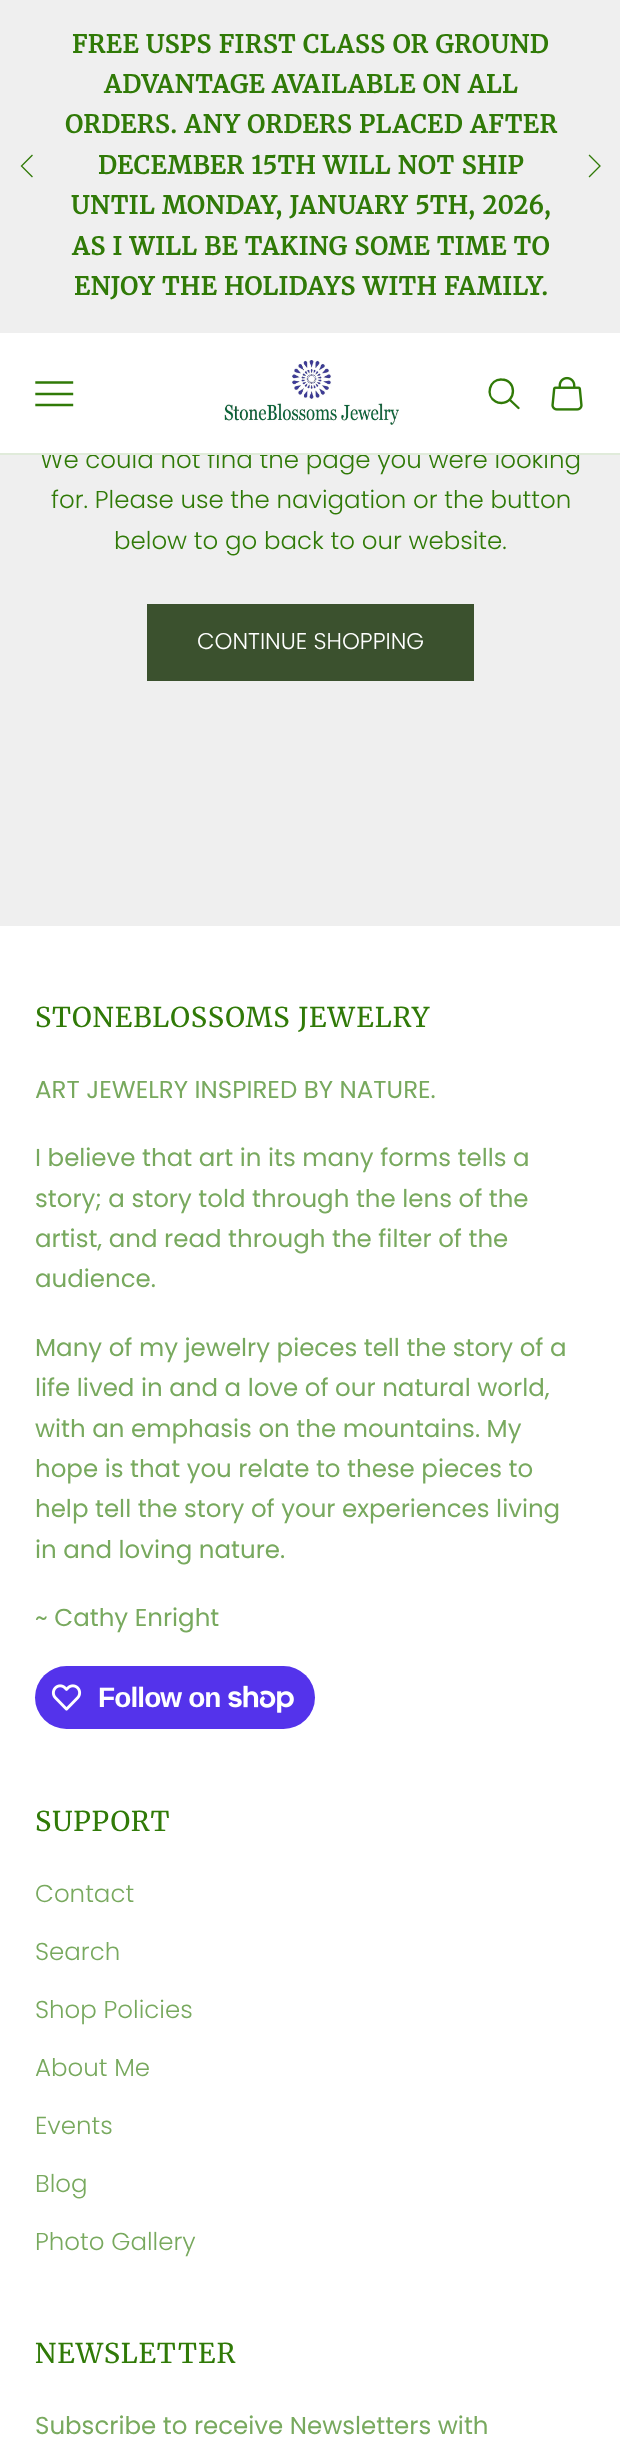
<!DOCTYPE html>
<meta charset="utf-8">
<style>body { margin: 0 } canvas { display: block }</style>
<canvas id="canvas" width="620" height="2441"></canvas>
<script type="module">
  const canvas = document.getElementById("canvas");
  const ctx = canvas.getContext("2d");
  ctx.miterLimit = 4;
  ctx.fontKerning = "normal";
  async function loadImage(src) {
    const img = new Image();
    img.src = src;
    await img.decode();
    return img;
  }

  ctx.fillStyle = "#efefef";
  ctx.fillRect(0, 0, 620, 2441);
  ctx.beginPath();
  ctx.moveTo(32, 155.5);
  ctx.lineTo(21.5, 166);
  ctx.lineTo(32, 176.5);
  ctx.strokeStyle = "#307a07";
  ctx.lineWidth = 1.3;
  ctx.lineCap = "square";
  ctx.stroke();
  ctx.letterSpacing = "1px";
  ctx.font = "bold 24.5px Merriweather";
  ctx.fillStyle = "#307a07";
  ctx.fillText("FREE USPS FIRST CLASS OR GROUND", 72, 53);
  ctx.fillText("ADVANTAGE AVAILABLE ON ALL", 104, 93);
  ctx.fillText("ORDERS. ANY ORDERS PLACED AFTER", 65, 133);
  ctx.fillText("DECEMBER 15TH WILL NOT SHIP", 98, 174);
  ctx.fillText("UNTIL MONDAY, JANUARY 5TH, 2026,", 71, 214);
  ctx.fillText("AS I WILL BE TAKING SOME TIME TO", 72, 255);
  ctx.fillText("ENJOY THE HOLIDAYS WITH FAMILY.", 74, 295);
  ctx.beginPath();
  ctx.moveTo(589.5, 176.5);
  ctx.lineTo(600, 166);
  ctx.lineTo(589.5, 155.5);
  ctx.stroke();
  ctx.letterSpacing = "0px";
  ctx.font = "300 24.5px Poppins";
  ctx.fillText("We could not find the page you were looking", 40, 468);
  ctx.fillStyle = "#ffffff";
  ctx.fillRect(0, 333, 620, 120);
  ctx.fillStyle = "#e0ebda";
  ctx.fillRect(0, 453, 620, 2);
  ctx.beginPath();
  ctx.moveTo(36.5, 405);
  ctx.lineTo(72, 405);
  ctx.moveTo(36.5, 394);
  ctx.lineTo(72, 394);
  ctx.moveTo(36.5, 382.5);
  ctx.lineTo(72, 382.5);
  ctx.lineWidth = 2.4;
  ctx.stroke();
  ctx.drawImage(await loadImage("img1.png"), 224, 360, 175, 65);
  ctx.beginPath();
  ctx.moveTo(501.5, 379.5);
  ctx.bezierCurveTo(489.5, 379, 485, 395.5, 495.5, 401.5);
  ctx.bezierCurveTo(497, 402.5, 499.5, 403, 501.5, 403);
  ctx.bezierCurveTo(517, 402, 516.5, 379.5, 501.5, 379.5);
  ctx.closePath();
  ctx.lineCap = "butt";
  ctx.stroke();
  ctx.beginPath();
  ctx.moveTo(510, 400);
  ctx.lineTo(518.5, 408);
  ctx.lineCap = "round";
  ctx.stroke();
  ctx.drawImage(await loadImage("img2.png"), 551, 376, 32, 35);
  ctx.fillStyle = "#307a07";
  ctx.fillText("for. Please use the navigation or the button", 51, 508);
  ctx.fillText("below to go back to our website.", 114, 549);
  ctx.fillStyle = "#3b512e";
  ctx.beginPath();
  ctx.rect(148, 605, 325, 75);
  ctx.fill();
  ctx.strokeStyle = "#3b512e";
  ctx.lineWidth = 2;
  ctx.stroke();
  ctx.font = "300 22.75px Poppins";
  ctx.fillStyle = "#ffffff";
  ctx.fillText("CONTINUE SHOPPING", 197, 649);
  ctx.fillRect(0, 926, 620, 1515);
  ctx.letterSpacing = "1.1px";
  ctx.font = "27.25px Merriweather";
  ctx.fillStyle = "#307a07";
  ctx.fillText("STONEBLOSSOMS JEWELRY", 35, 1027);
  ctx.letterSpacing = "0px";
  ctx.font = "24.5px Poppins";
  ctx.fillStyle = "#78a95e";
  ctx.fillText("ART JEWELRY INSPIRED BY NATURE.", 35, 1098);
  ctx.fillText("I believe that art in its many forms tells a", 35, 1166);
  ctx.fillText("story; a story told through the lens of the", 35, 1207);
  ctx.fillText("artist, and read through the filter of the", 35, 1247);
  ctx.fillText("audience.", 35, 1287);
  ctx.fillText("Many of my jewelry pieces tell the story of a", 35, 1356);
  ctx.fillText("life lived in and a love of our natural world,", 35, 1396);
  ctx.fillText("with an emphasis on the mountains. My", 35, 1437);
  ctx.fillText("hope is that you relate to these pieces to", 35, 1477);
  ctx.fillText("help tell the story of your experiences living", 35, 1517);
  ctx.fillText("in and loving nature.", 35, 1558);
  ctx.fillText("~ Cathy Enright", 35, 1626);
  ctx.fillStyle = "#5433eb";
  ctx.beginPath();
  ctx.roundRect(35, 1666, 280, 63, 31.5);
  ctx.fill();
  ctx.drawImage(await loadImage("img3.png"), 51, 1684, 31, 27);
  ctx.letterSpacing = "-0.9px";
  ctx.font = "bold 28px Liberation Sans";
  ctx.fillStyle = "#ffffff";
  ctx.fillText("Follow on", 98, 1707);
  ctx.drawImage(await loadImage("img4.png"), 228, 1685, 66, 28);
  ctx.letterSpacing = "1.1px";
  ctx.font = "27.25px Merriweather";
  ctx.fillStyle = "#307a07";
  ctx.fillText("SUPPORT", 35, 1831);
  ctx.letterSpacing = "0px";
  ctx.font = "300 24.5px Poppins";
  ctx.fillStyle = "#78a95e";
  ctx.fillText("Contact", 35, 1902);
  ctx.fillText("Search", 35, 1960);
  ctx.fillText("Shop Policies", 35, 2018);
  ctx.fillText("About Me", 35, 2076);
  ctx.fillText("Events", 35, 2134);
  ctx.fillText("Blog", 35, 2192);
  ctx.fillText("Photo Gallery", 35, 2250);
  ctx.letterSpacing = "1.1px";
  ctx.font = "27.25px Merriweather";
  ctx.fillStyle = "#307a07";
  ctx.fillText("NEWSLETTER", 35, 2363);
  ctx.letterSpacing = "0px";
  ctx.font = "24.5px Poppins";
  ctx.fillStyle = "#78a95e";
  ctx.fillText("Subscribe to receive Newsletters with", 35, 2434);
</script>
